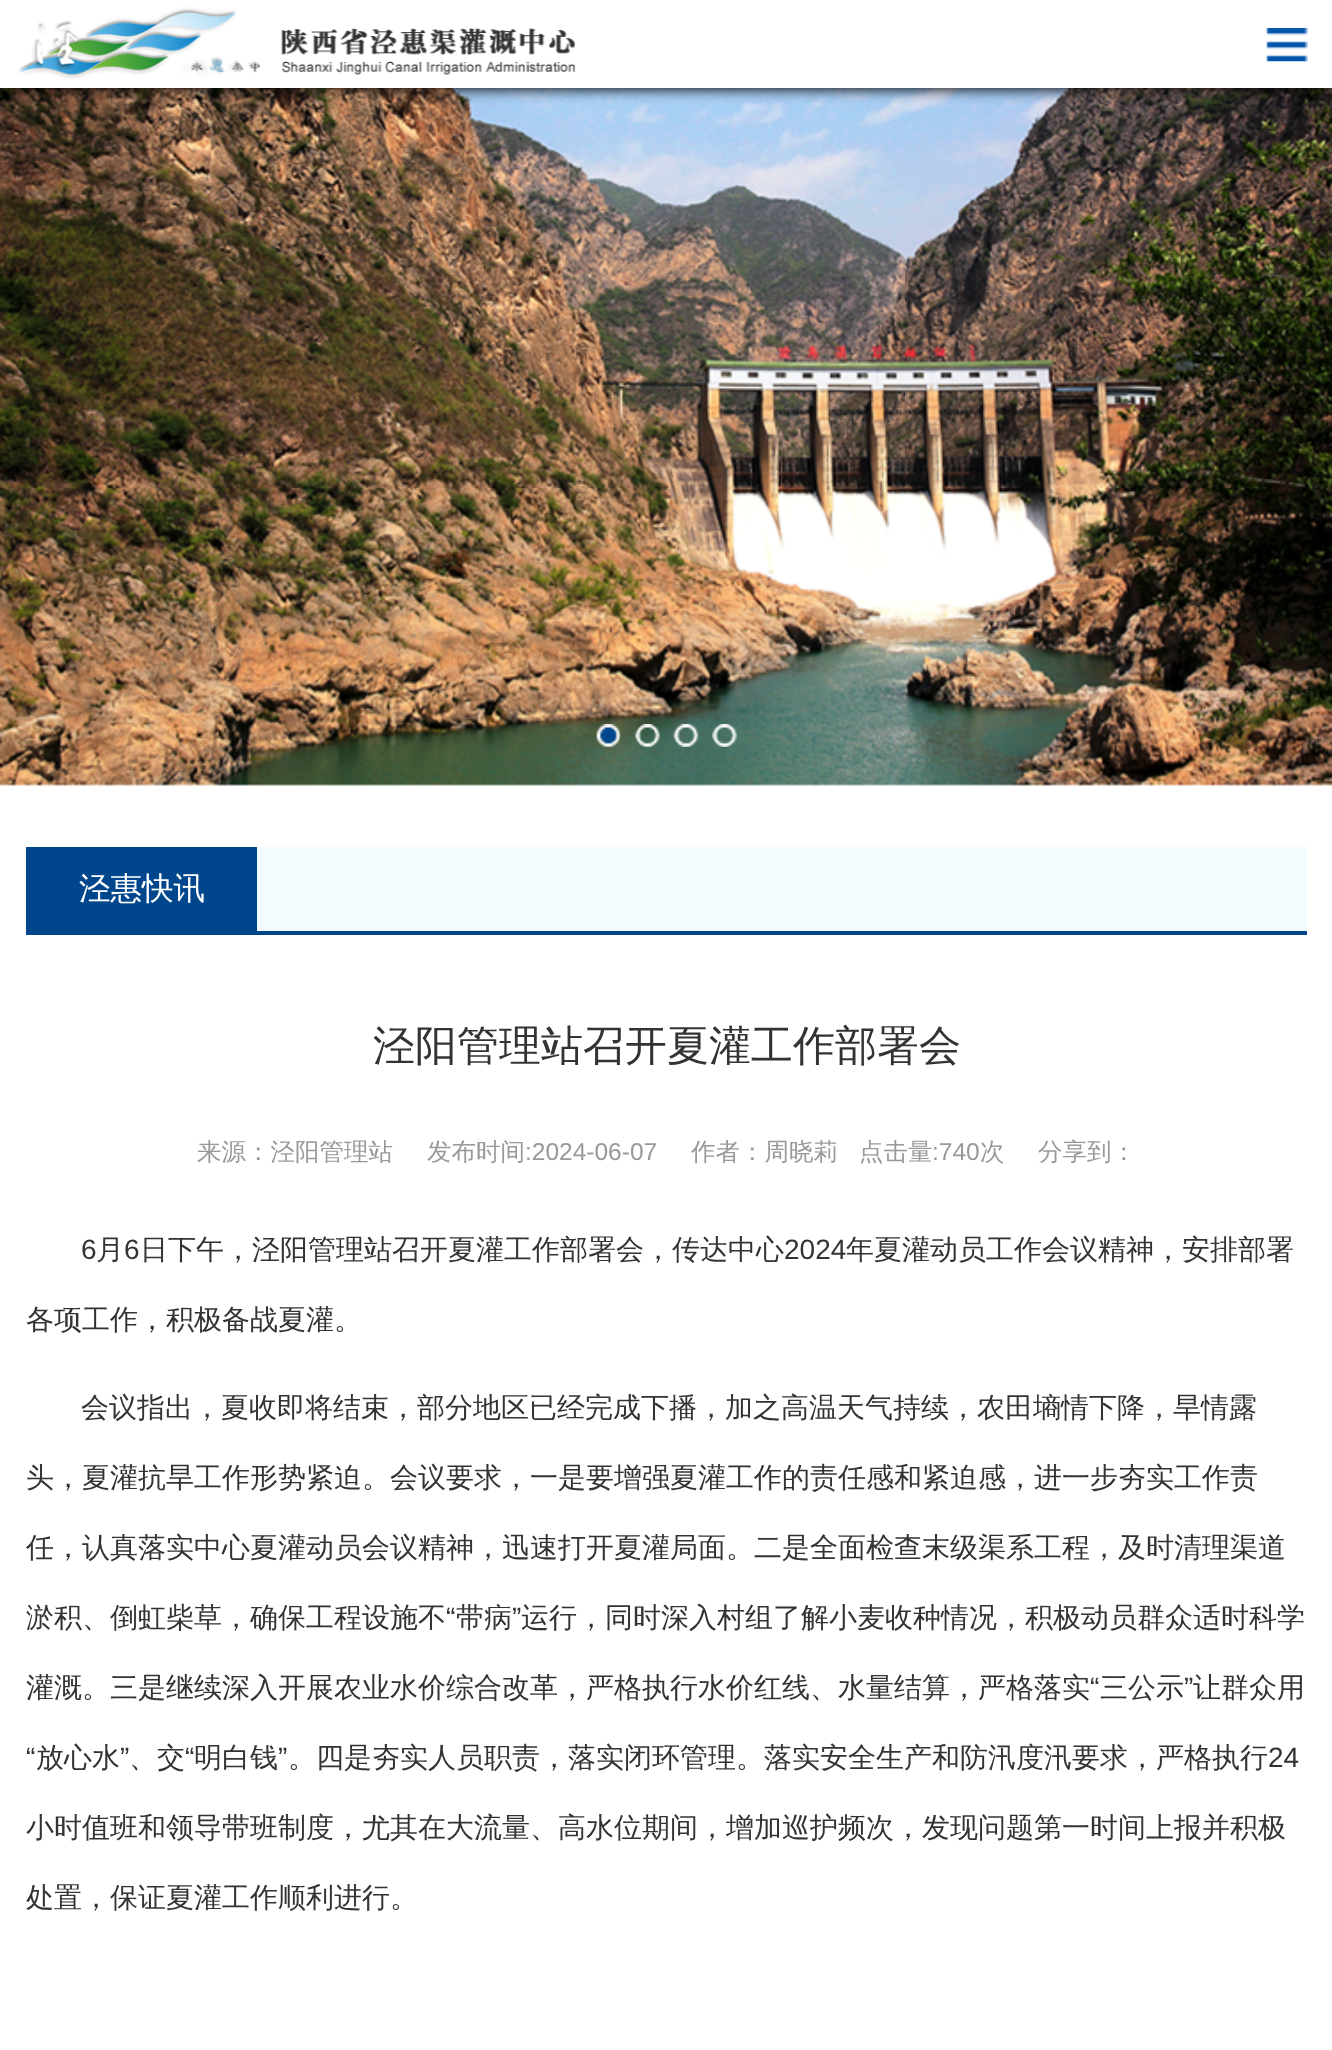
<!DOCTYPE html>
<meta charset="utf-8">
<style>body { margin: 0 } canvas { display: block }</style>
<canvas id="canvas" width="1332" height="2050"></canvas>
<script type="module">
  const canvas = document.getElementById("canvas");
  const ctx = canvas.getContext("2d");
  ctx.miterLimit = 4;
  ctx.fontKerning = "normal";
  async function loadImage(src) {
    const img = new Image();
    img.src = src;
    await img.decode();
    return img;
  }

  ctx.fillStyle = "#ffffff";
  ctx.fillRect(0, 0, 1332, 2050);
  ctx.drawImage(await loadImage("img3.png"), 0, 88, 1332, 698);
  ctx.fillStyle = "#000000";
  ctx.filter = "blur(7px)";
  ctx.beginPath();
  ctx.rect(5, 12, 1323, 77);
  ctx.fill();
  ctx.filter = "none";
  ctx.fillStyle = "#ffffff";
  ctx.fillRect(0, 0, 1332, 88);
  ctx.drawImage(await loadImage("img1.png"), 18, 7, 558, 73);
  ctx.drawImage(await loadImage("img2.png"), 1266, 28, 42, 34);
  ctx.drawImage(await loadImage("img4.png"), 596, 724, 26, 23);
  ctx.drawImage(await loadImage("img5.png"), 635, 724, 25, 23);
  ctx.drawImage(await loadImage("img6.png"), 673, 724, 26, 23);
  ctx.drawImage(await loadImage("img7.png"), 712, 724, 25, 23);
  ctx.fillStyle = "#f4fbff";
  ctx.fillRect(257, 847, 1050, 84);
  ctx.fillStyle = "#00468c";
  ctx.fillRect(26, 931, 1281, 4);
  ctx.fillRect(26, 847, 231, 84);
  ctx.font = "500 31.5px WenQuanYi Zen Hei";
  ctx.fillStyle = "#ffffff";
  ctx.fillText("泾惠快讯", 79, 899);
  ctx.font = "500 42px WenQuanYi Zen Hei";
  ctx.fillStyle = "#333333";
  ctx.fillText("泾阳管理站召开夏灌工作部署会", 373, 1060);
  ctx.font = "500 24.5px WenQuanYi Zen Hei";
  ctx.fillStyle = "#999999";
  ctx.fillText("来源：泾阳管理站", 197, 1160);
  ctx.fillText("发布时间", 427, 1160);
  ctx.font = "24.5px Liberation Sans";
  ctx.fillText(":2024-06-07", 525, 1160);
  ctx.font = "500 24.5px WenQuanYi Zen Hei";
  ctx.fillText("作者：周晓莉", 691, 1160);
  ctx.fillText("点击量", 859, 1160);
  ctx.font = "24.5px Liberation Sans";
  ctx.fillText(":740", 932, 1160);
  ctx.font = "500 24.5px WenQuanYi Zen Hei";
  ctx.fillText("次", 980, 1160);
  ctx.fillText("分享到：", 1038, 1160);
  ctx.font = "28px Liberation Sans";
  ctx.fillStyle = "#333333";
  ctx.fillText("6", 81, 1259);
  ctx.font = "500 28px WenQuanYi Zen Hei";
  ctx.fillText("月", 96, 1259);
  ctx.font = "28px Liberation Sans";
  ctx.fillText("6", 124, 1259);
  ctx.font = "500 28px WenQuanYi Zen Hei";
  ctx.fillText("日下午，泾阳管理站召开夏灌工作部署会，传达中心", 140, 1259);
  ctx.font = "28px Liberation Sans";
  ctx.fillText("2024", 784, 1259);
  ctx.font = "500 28px WenQuanYi Zen Hei";
  ctx.fillText("年夏灌动员工作会议精神，安排部署", 846, 1259);
  ctx.fillText("各项工作，积极备战夏灌。", 26, 1329);
  ctx.fillText("会议指出，夏收即将结束，部分地区已经完成下播，加之高温天气持续，农田墒情下降，旱情露", 81, 1417);
  ctx.fillText("头，夏灌抗旱工作形势紧迫。会议要求，一是要增强夏灌工作的责任感和紧迫感，进一步夯实工作责", 26, 1487);
  ctx.fillText("任，认真落实中心夏灌动员会议精神，迅速打开夏灌局面。二是全面检查末级渠系工程，及时清理渠道", 26, 1557);
  ctx.fillText("淤积、倒虹柴草，确保工程设施不", 26, 1627);
  ctx.font = "28px Liberation Sans";
  ctx.fillText("“", 446, 1627);
  ctx.font = "500 28px WenQuanYi Zen Hei";
  ctx.fillText("带病", 456, 1627);
  ctx.font = "28px Liberation Sans";
  ctx.fillText("”", 512, 1627);
  ctx.font = "500 28px WenQuanYi Zen Hei";
  ctx.fillText("运行，同时深入村组了解小麦收种情况，积极动员群众适时科学", 521, 1627);
  ctx.fillText("灌溉。三是继续深入开展农业水价综合改革，严格执行水价红线、水量结算，严格落实", 26, 1697);
  ctx.font = "28px Liberation Sans";
  ctx.fillText("“", 1090, 1697);
  ctx.font = "500 28px WenQuanYi Zen Hei";
  ctx.fillText("三公示", 1100, 1697);
  ctx.font = "28px Liberation Sans";
  ctx.fillText("”", 1184, 1697);
  ctx.font = "500 28px WenQuanYi Zen Hei";
  ctx.fillText("让群众用", 1193, 1697);
  ctx.font = "28px Liberation Sans";
  ctx.fillText("“", 26, 1767);
  ctx.font = "500 28px WenQuanYi Zen Hei";
  ctx.fillText("放心水", 36, 1767);
  ctx.font = "28px Liberation Sans";
  ctx.fillText("”", 120, 1767);
  ctx.font = "500 28px WenQuanYi Zen Hei";
  ctx.fillText("、交", 129, 1767);
  ctx.font = "28px Liberation Sans";
  ctx.fillText("“", 185, 1767);
  ctx.font = "500 28px WenQuanYi Zen Hei";
  ctx.fillText("明白钱", 194, 1767);
  ctx.font = "28px Liberation Sans";
  ctx.fillText("”", 278, 1767);
  ctx.font = "500 28px WenQuanYi Zen Hei";
  ctx.fillText("。四是夯实人员职责，落实闭环管理。落实安全生产和防汛度汛要求，严格执行", 288, 1767);
  ctx.font = "28px Liberation Sans";
  ctx.fillText("24", 1268, 1767);
  ctx.font = "500 28px WenQuanYi Zen Hei";
  ctx.fillText("小时值班和领导带班制度，尤其在大流量、高水位期间，增加巡护频次，发现问题第一时间上报并积极", 26, 1837);
  ctx.fillText("处置，保证夏灌工作顺利进行。", 26, 1907);
</script>
